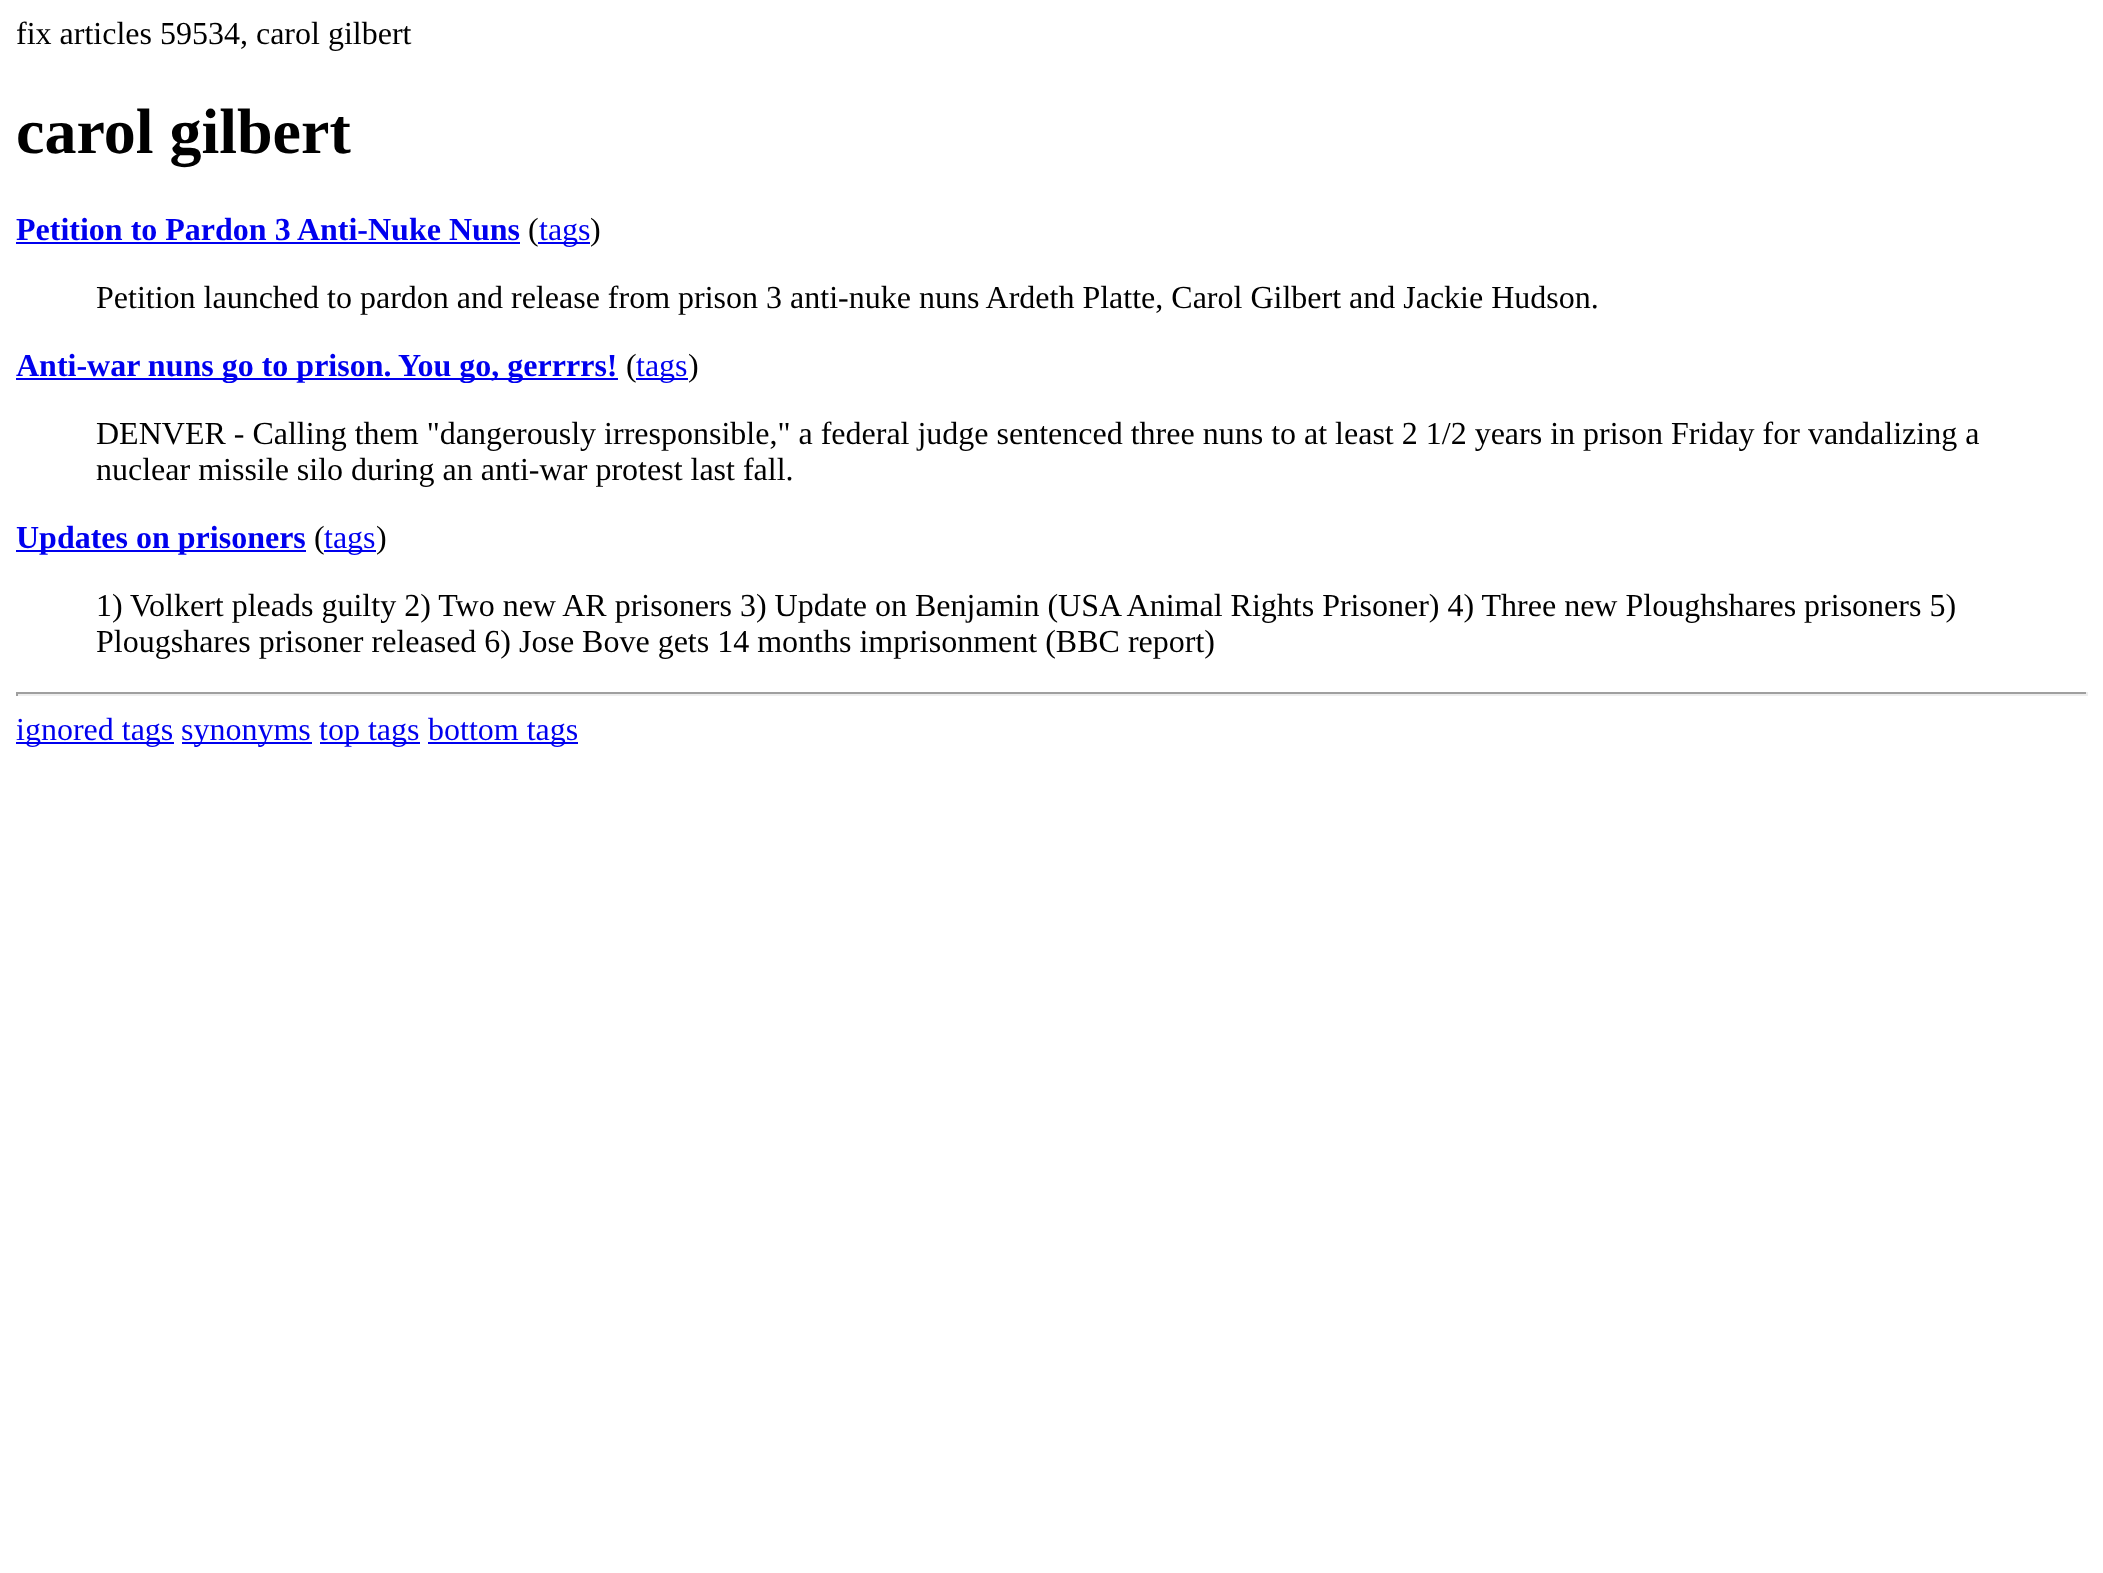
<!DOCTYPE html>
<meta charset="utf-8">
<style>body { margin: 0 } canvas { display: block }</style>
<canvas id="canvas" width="2103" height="1573"></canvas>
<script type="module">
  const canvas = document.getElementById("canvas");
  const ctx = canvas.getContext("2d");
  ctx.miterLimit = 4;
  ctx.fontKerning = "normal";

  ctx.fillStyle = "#ffffff";
  ctx.fillRect(0, 0, 2103, 1573);
  ctx.font = "32px Liberation Serif";
  ctx.fillStyle = "#000000";
  ctx.fillText("fix articles 59534, carol gilbert", 16, 44);
  ctx.font = "bold 64px Liberation Serif";
  ctx.fillText("carol gilbert", 16, 153);
  ctx.font = "bold 32px Liberation Serif";
  ctx.fillStyle = "#0000ee";
  ctx.fillText("Petition to Pardon 3 Anti-Nuke Nuns", 16, 240);
  ctx.fillRect(16, 242, 504, 2);
  ctx.font = "32px Liberation Serif";
  ctx.fillStyle = "#000000";
  ctx.fillText("(", 528, 240);
  ctx.fillStyle = "#0000ee";
  ctx.fillRect(538, 242, 52, 2);
  ctx.fillText("tags", 539, 240);
  ctx.fillStyle = "#000000";
  ctx.fillText(")", 590, 240);
  ctx.fillText("Petition launched to pardon and release from prison 3 anti-nuke nuns Ardeth Platte, Carol Gilbert and Jackie Hudson.", 96, 308);
  ctx.fillStyle = "#0000ee";
  ctx.fillRect(16, 378, 602, 2);
  ctx.font = "bold 32px Liberation Serif";
  ctx.fillText("Anti-war nuns go to prison.", 16, 376);
  ctx.fillText("You go, gerrrrs!", 398, 376);
  ctx.font = "32px Liberation Serif";
  ctx.fillStyle = "#000000";
  ctx.fillText("(", 626, 376);
  ctx.fillStyle = "#0000ee";
  ctx.fillRect(636, 378, 52, 2);
  ctx.fillText("tags", 636, 376);
  ctx.fillStyle = "#000000";
  ctx.fillText(")", 688, 376);
  ctx.fillText("DENVER - Calling them \"dangerously irresponsible,\" a federal judge sentenced three nuns to at least 2 1/2 years in prison Friday for vandalizing a", 96, 444);
  ctx.fillText("nuclear missile silo during an anti-war protest last fall.", 96, 480);
  ctx.fillStyle = "#0000ee";
  ctx.fillRect(16, 550, 290, 2);
  ctx.font = "bold 32px Liberation Serif";
  ctx.fillText("Updates on prisoners", 16, 548);
  ctx.font = "32px Liberation Serif";
  ctx.fillStyle = "#000000";
  ctx.fillText("(", 314, 548);
  ctx.fillStyle = "#0000ee";
  ctx.fillRect(324, 550, 52, 2);
  ctx.fillText("tags", 324, 548);
  ctx.fillStyle = "#000000";
  ctx.fillText(")", 376, 548);
  ctx.fillText("1) Volkert pleads guilty 2) Two new AR prisoners 3) Update on Benjamin (USA Animal Rights Prisoner) 4) Three new Ploughshares prisoners 5)", 96, 616);
  ctx.fillText("Plougshares prisoner released 6) Jose Bove gets 14 months imprisonment (BBC report)", 96, 652);
  ctx.fillStyle = "#9f9f9f";
  ctx.fillRect(16, 692, 2072, 2);
  ctx.fillStyle = "#eeeeee";
  ctx.fillRect(2086, 692, 2, 4);
  ctx.fillRect(16, 694, 2072, 2);
  ctx.fillStyle = "#9f9f9f";
  ctx.fillRect(16, 692, 2, 4);
  ctx.fillStyle = "#0000ee";
  ctx.fillRect(16, 742, 158, 2);
  ctx.fillText("ignored tags", 16, 740);
  ctx.fillRect(182, 742, 130, 2);
  ctx.fillText("synonyms", 181, 740);
  ctx.fillRect(320, 742, 100, 2);
  ctx.fillText("top tags", 319, 740);
  ctx.fillRect(428, 742, 150, 2);
  ctx.fillText("bottom tags", 428, 740);
</script>
